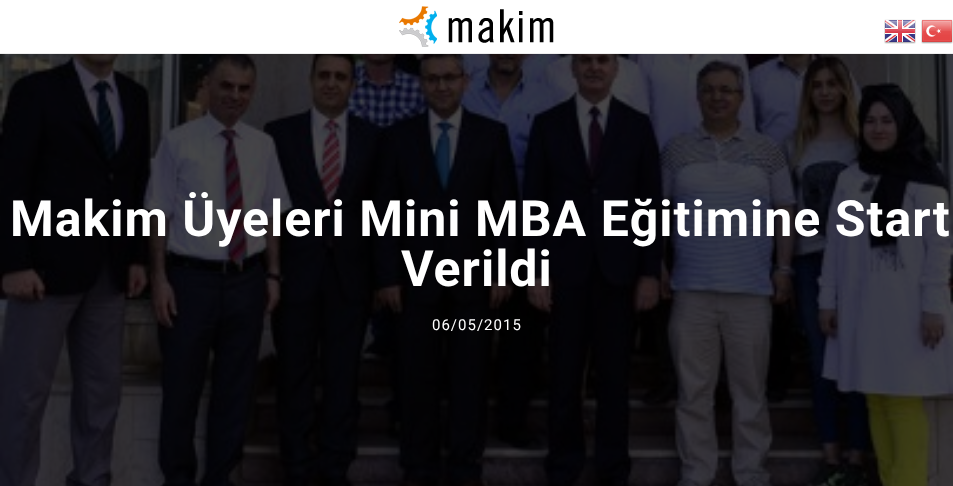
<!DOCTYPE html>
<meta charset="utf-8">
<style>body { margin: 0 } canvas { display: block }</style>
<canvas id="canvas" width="953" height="486"></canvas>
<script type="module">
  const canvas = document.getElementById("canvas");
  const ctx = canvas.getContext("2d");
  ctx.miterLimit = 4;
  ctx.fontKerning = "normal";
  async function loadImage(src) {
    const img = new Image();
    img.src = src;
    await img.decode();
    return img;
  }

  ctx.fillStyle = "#ffffff";
  ctx.fillRect(0, 0, 953, 486);
  ctx.fillStyle = "#eeeeee";
  ctx.fillRect(0, 53, 953, 1);
  ctx.drawImage(await loadImage("img1.png"), 399, 6, 155, 41);
  ctx.drawImage(await loadImage("img2.png"), 884, 19, 32, 25);
  ctx.drawImage(await loadImage("img3.png"), 921, 19, 32, 25);
  ctx.drawImage(await loadImage("img4.png"), 0, 54, 953, 432);
  ctx.letterSpacing = "1px";
  ctx.font = "bold 50px Roboto";
  ctx.fillStyle = "#ffffff";
  ctx.fillText("Makim Üyeleri Mini MBA Eğitimine Start", 10, 236);
  ctx.fillText("Verildi", 401, 286);
  ctx.font = "15px Roboto";
  ctx.fillText("06/05/2015", 432, 330);
</script>
